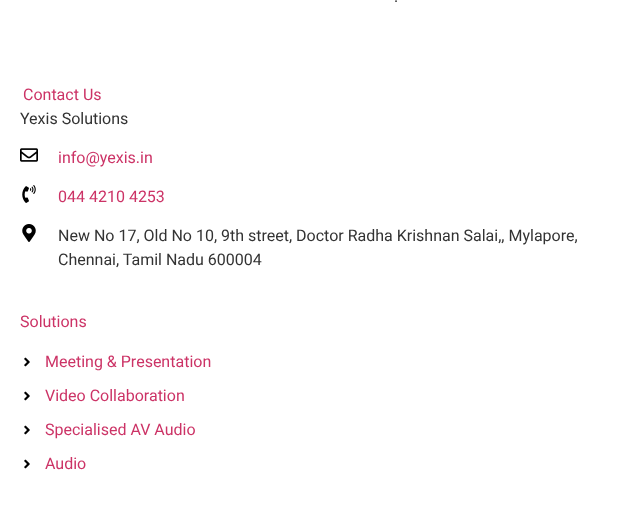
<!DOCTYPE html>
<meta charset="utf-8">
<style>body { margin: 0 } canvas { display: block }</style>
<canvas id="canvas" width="638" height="509"></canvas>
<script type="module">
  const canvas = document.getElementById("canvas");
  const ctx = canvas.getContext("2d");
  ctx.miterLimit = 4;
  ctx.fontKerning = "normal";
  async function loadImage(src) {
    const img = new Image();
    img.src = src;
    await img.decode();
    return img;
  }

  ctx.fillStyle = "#ffffff";
  ctx.fillRect(0, 0, 638, 509);
  ctx.font = "16px Roboto";
  ctx.fillStyle = "#333333";
  ctx.fillText(".", 394, 2);
  ctx.fillStyle = "#cc3366";
  ctx.fillText("Contact Us", 23, 100);
  ctx.fillStyle = "#333333";
  ctx.fillText("Yexis Solutions", 20, 124);
  ctx.drawImage(await loadImage("img1.png"), 20, 148, 18, 14);
  ctx.fillStyle = "#cc3366";
  ctx.fillText("info@yexis.in", 58, 163);
  ctx.drawImage(await loadImage("img2.png"), 22, 185, 14, 18);
  ctx.fillText("044 4210 4253", 58, 202);
  ctx.drawImage(await loadImage("img3.png"), 22, 224, 14, 18);
  ctx.fillStyle = "#333333";
  ctx.fillText("New No 17, Old No 10, 9th street, Doctor Radha Krishnan Salai,, Mylapore,", 58, 241);
  ctx.fillText("Chennai, Tamil Nadu 600004", 58, 265);
  ctx.fillStyle = "#cc3366";
  ctx.fillText("Solutions", 20, 327);
  ctx.drawImage(await loadImage("img4.png"), 24, 357, 6, 10);
  ctx.fillText("Meeting & Presentation", 45, 367);
  ctx.drawImage(await loadImage("img4.png"), 24, 391, 6, 10);
  ctx.fillText("Video Collaboration", 45, 401);
  ctx.drawImage(await loadImage("img4.png"), 24, 425, 6, 10);
  ctx.fillText("Specialised AV Audio", 45, 435);
  ctx.drawImage(await loadImage("img4.png"), 24, 459, 6, 10);
  ctx.fillText("Audio", 45, 469);
</script>
